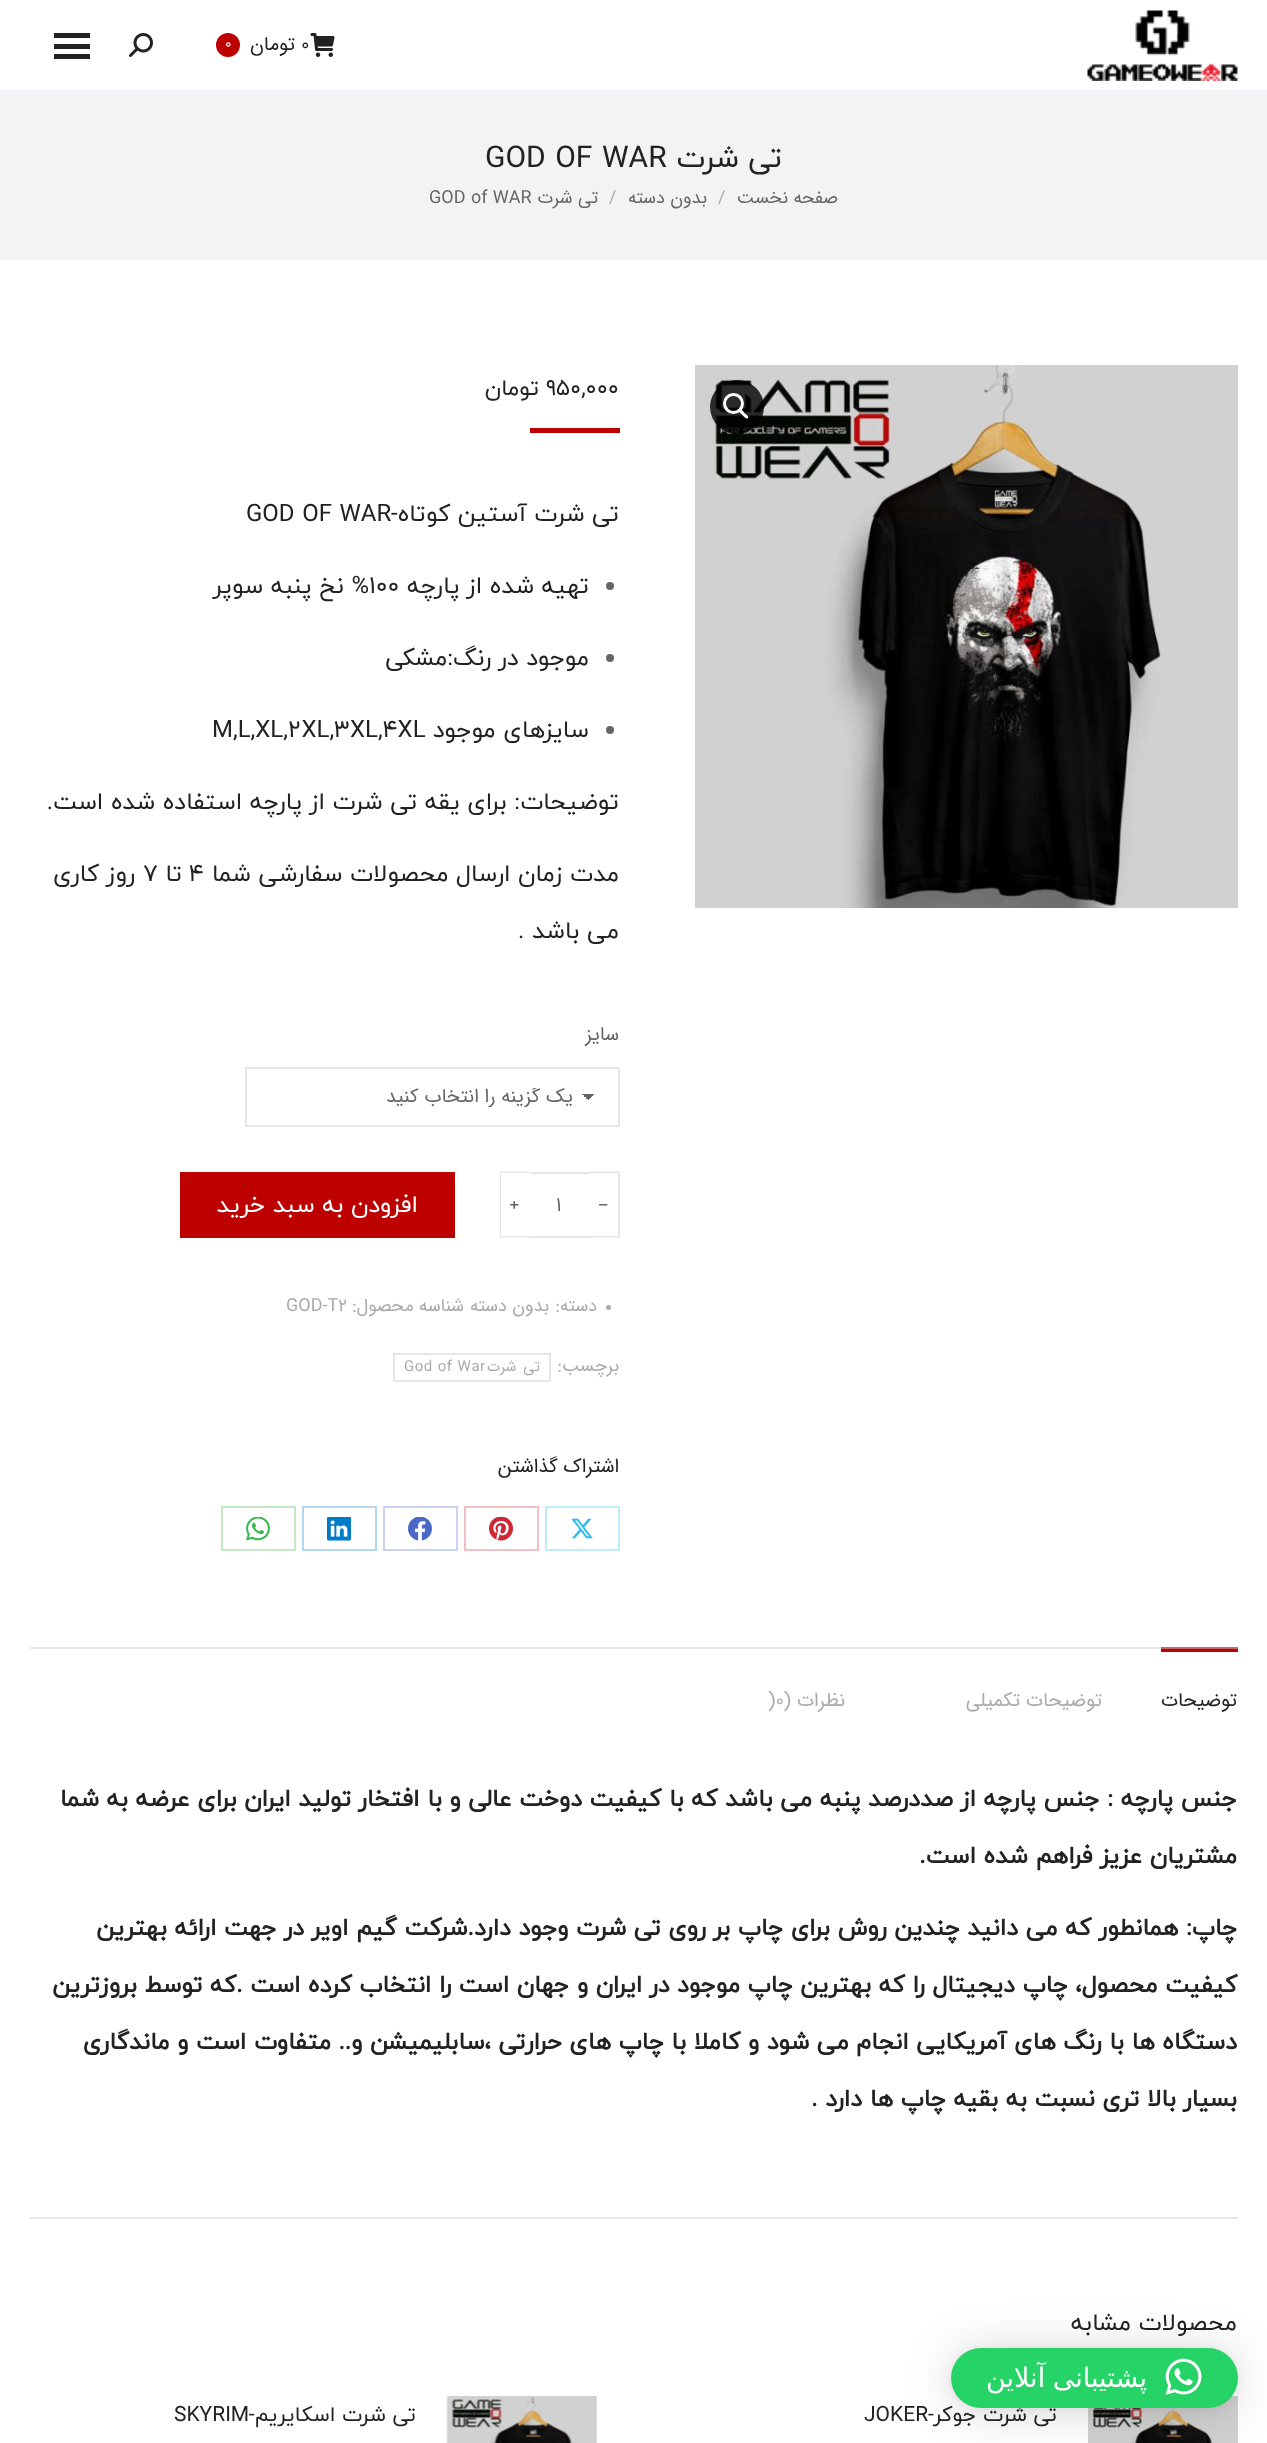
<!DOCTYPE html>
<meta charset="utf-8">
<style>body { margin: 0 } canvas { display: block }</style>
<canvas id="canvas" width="1267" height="2443"></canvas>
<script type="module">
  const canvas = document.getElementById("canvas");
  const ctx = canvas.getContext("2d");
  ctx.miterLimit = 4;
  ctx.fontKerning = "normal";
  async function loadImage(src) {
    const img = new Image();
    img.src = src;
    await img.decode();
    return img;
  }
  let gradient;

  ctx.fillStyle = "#ffffff";
  ctx.fillRect(0, 0, 1267, 2443);
  ctx.fillStyle = "#e6e6e6";
  ctx.fillRect(30, 1647, 1131, 2);
  ctx.drawImage(await loadImage("img1.png"), 1087, 10, 151, 71);
  ctx.drawImage(await loadImage("img2.png"), 310, 33, 25, 24);
  ctx.font = "19.5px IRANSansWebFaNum";
  ctx.fillStyle = "#222222";
  ctx.fillText("0", 301, 50);
  ctx.direction = "rtl";
  ctx.fillText("تومان", 295, 50);
  ctx.fillStyle = "#bd0100";
  ctx.beginPath();
  ctx.arc(228, 45, 12, 0, Math.PI * 2);
  ctx.fill();
  ctx.direction = "ltr";
  ctx.font = "15px IRANSansWebFaNum";
  ctx.fillStyle = "#ffffff";
  ctx.fillText("0", 225, 48);
  ctx.drawImage(await loadImage("img3.png"), 129, 33, 24, 24);
  ctx.fillStyle = "#222222";
  ctx.fillRect(54, 33, 36, 5);
  ctx.fillRect(54, 44, 36, 5);
  ctx.fillRect(54, 54, 36, 5);
  ctx.fillStyle = "#f3f3f5";
  ctx.fillRect(0, 90, 1267, 170);
  ctx.direction = "rtl";
  ctx.font = "30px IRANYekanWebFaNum";
  ctx.fillStyle = "#222222";
  ctx.fillText("تی شرت", 782, 167);
  ctx.direction = "ltr";
  ctx.fillText("GOD OF WAR", 485, 167);
  ctx.direction = "rtl";
  ctx.font = "18px IRANSansWebFaNum";
  ctx.fillStyle = "#666666";
  ctx.fillText("صفحه نخست", 838, 203);
  ctx.direction = "ltr";
  ctx.fillStyle = "#aaaaaa";
  ctx.fillText("/", 718, 203);
  ctx.direction = "rtl";
  ctx.fillStyle = "#666666";
  ctx.fillText("بدون دسته", 707, 203);
  ctx.direction = "ltr";
  ctx.fillStyle = "#aaaaaa";
  ctx.fillText("/", 609, 203);
  ctx.direction = "rtl";
  ctx.fillStyle = "#666666";
  ctx.fillText("تی شرت", 598, 203);
  ctx.direction = "ltr";
  ctx.fillText("GOD of WAR", 429, 203);
  ctx.drawImage(await loadImage("img4.png"), 695, 365, 543, 543);
  ctx.fillStyle = "rgba(0, 0, 0, 0.8)";
  ctx.beginPath();
  ctx.arc(737, 407, 27, 0, Math.PI * 2);
  ctx.fill();
  ctx.beginPath();
  ctx.arc(733.5, 403.5, 9, 0, Math.PI * 2);
  ctx.strokeStyle = "#ffffff";
  ctx.lineWidth = 3;
  ctx.stroke();
  ctx.fillStyle = "#ffffff";
  ctx.beginPath();
  ctx.moveTo(739.5, 410);
  ctx.bezierCurveTo(741, 408, 744, 412, 744.5, 413);
  ctx.bezierCurveTo(745.5, 414, 749.5, 416.5, 748, 418);
  ctx.bezierCurveTo(746, 420, 743.5, 416, 742.5, 415);
  ctx.bezierCurveTo(741.5, 414, 737.5, 411.5, 739.5, 410);
  ctx.closePath();
  ctx.fill();
  ctx.font = "22.5px IRANYekanWebFaNum";
  ctx.fillStyle = "#222222";
  ctx.fillText("950,000", 546, 395);
  ctx.direction = "rtl";
  ctx.fillText("تومان", 539, 395);
  ctx.fillStyle = "#bd0100";
  ctx.fillRect(530, 428, 90, 5);
  ctx.font = "24px IRANYekanWebFaNum";
  ctx.fillStyle = "#222222";
  ctx.fillText("تی شرت آستین کوتاه-", 619, 521);
  ctx.direction = "ltr";
  ctx.fillText("GOD OF WAR", 246, 521);
  ctx.fillStyle = "#666666";
  ctx.beginPath();
  ctx.arc(610, 586, 4, 0, Math.PI * 2);
  ctx.fill();
  ctx.direction = "rtl";
  ctx.fillStyle = "#222222";
  ctx.fillText("تهیه شده از پارچه", 589, 593);
  ctx.direction = "ltr";
  ctx.fillText("100", 369, 593);
  ctx.direction = "rtl";
  ctx.fillText("% نخ پنبه سوپر", 369, 593);
  ctx.fillStyle = "#666666";
  ctx.beginPath();
  ctx.arc(610, 658, 4, 0, Math.PI * 2);
  ctx.fill();
  ctx.fillStyle = "#222222";
  ctx.fillText("موجود در رنگ:مشکی", 589, 665);
  ctx.fillStyle = "#666666";
  ctx.beginPath();
  ctx.arc(610, 730, 4, 0, Math.PI * 2);
  ctx.fill();
  ctx.fillStyle = "#222222";
  ctx.fillText("سایزهای موجود", 589, 737);
  ctx.direction = "ltr";
  ctx.fillText("M,L,XL,2XL,3XL,4XL", 212, 737);
  ctx.direction = "rtl";
  ctx.fillText("توضیحات: برای یقه تی شرت از پارچه استفاده شده است.", 619, 809);
  ctx.fillText("مدت زمان ارسال محصولات سفارشی شما", 619, 881);
  ctx.direction = "ltr";
  ctx.fillText("4", 189, 881);
  ctx.direction = "rtl";
  ctx.fillText("تا", 182, 881);
  ctx.direction = "ltr";
  ctx.fillText("7", 143, 881);
  ctx.direction = "rtl";
  ctx.fillText("روز کاری", 135, 881);
  ctx.fillText("می باشد .", 619, 938);
  ctx.font = "19.5px IRANSansWebFaNum";
  ctx.fillStyle = "#666666";
  ctx.fillText("سایز", 619, 1040);
  gradient = ctx.createLinearGradient(588, 1093, 596, 1100);
  gradient.addColorStop(0.5, "#666666");
  gradient.addColorStop(0.5, "#ffffff");
  ctx.fillStyle = gradient;
  ctx.fillRect(588, 1094, 8, 6);
  gradient = ctx.createLinearGradient(581, 1100, 588, 1093);
  gradient.addColorStop(0.5, "#ffffff");
  gradient.addColorStop(0.5, "#666666");
  ctx.fillStyle = gradient;
  ctx.fillRect(581, 1094, 7, 5);
  ctx.strokeStyle = "#e6e6e6";
  ctx.lineWidth = 2;
  ctx.strokeRect(246, 1068, 373, 58);
  ctx.save();
  ctx.beginPath();
  ctx.rect(269, 1088, 304, 19);
  ctx.clip();
  ctx.fillStyle = "#666666";
  ctx.fillText("یک گزینه را انتخاب کنید", 573, 1102);
  ctx.restore();
  ctx.fillStyle = "#e6e6e6";
  ctx.fillRect(530, 1172, 60, 2);
  ctx.fillStyle = "rgba(204, 204, 204, 0.5)";
  ctx.beginPath();
  ctx.moveTo(589.5, 1171.5);
  ctx.lineTo(619.5, 1171.5);
  ctx.lineTo(618, 1173);
  ctx.lineTo(589.5, 1173);
  ctx.closePath();
  ctx.fill();
  ctx.fillStyle = "#e7e7e7";
  ctx.beginPath();
  ctx.moveTo(620, 1172);
  ctx.lineTo(620, 1238);
  ctx.lineTo(618, 1236);
  ctx.lineTo(618, 1173);
  ctx.closePath();
  ctx.fill();
  ctx.fillStyle = "#e6e6e6";
  ctx.fillRect(530, 1236, 60, 2);
  ctx.fillStyle = "rgba(204, 204, 204, 0.5)";
  ctx.beginPath();
  ctx.moveTo(619.5, 1237.5);
  ctx.lineTo(589.5, 1237.5);
  ctx.lineTo(589.5, 1236);
  ctx.lineTo(618, 1236);
  ctx.closePath();
  ctx.fill();
  ctx.direction = "ltr";
  ctx.font = "bold 19.5px WenQuanYi Zen Hei";
  ctx.fillStyle = "#666666";
  ctx.fillText("﹣", 594, 1211);
  ctx.font = "19.5px IRANYekanWebFaNum";
  ctx.fillText("1", 556, 1211);
  ctx.fillStyle = "#e6e6e6";
  ctx.beginPath();
  ctx.moveTo(499.5, 1171.5);
  ctx.lineTo(529.5, 1171.5);
  ctx.lineTo(529.5, 1173);
  ctx.lineTo(501, 1173);
  ctx.closePath();
  ctx.fill();
  ctx.beginPath();
  ctx.moveTo(529.5, 1237.5);
  ctx.lineTo(499.5, 1237.5);
  ctx.lineTo(501, 1236);
  ctx.lineTo(529.5, 1236);
  ctx.closePath();
  ctx.fill();
  ctx.fillStyle = "rgba(51, 51, 51, 0.12)";
  ctx.beginPath();
  ctx.moveTo(500, 1238);
  ctx.lineTo(500, 1172);
  ctx.lineTo(501, 1173);
  ctx.lineTo(501, 1236);
  ctx.closePath();
  ctx.fill();
  ctx.font = "bold 19.5px WenQuanYi Zen Hei";
  ctx.fillStyle = "#666666";
  ctx.fillText("﹢", 505, 1211);
  ctx.fillStyle = "#bd0100";
  ctx.fillRect(180, 1172, 275, 66);
  ctx.direction = "rtl";
  ctx.font = "24px IRANYekanWebFaNum";
  ctx.fillStyle = "#ffffff";
  ctx.fillText("افزودن به سبد خرید", 418, 1212);
  ctx.fillStyle = "#aaaaaa";
  ctx.beginPath();
  ctx.arc(608.5, 1307.5, 2.5, 0, Math.PI * 2);
  ctx.fill();
  ctx.font = "18px IRANSansWebFaNum";
  ctx.fillText("دسته:", 597, 1311);
  ctx.fillText("بدون دسته", 549, 1311);
  ctx.fillText("شناسه محصول:", 464, 1311);
  ctx.direction = "ltr";
  ctx.fillText("GOD-T2", 286, 1311);
  ctx.direction = "rtl";
  ctx.fillText("برچسب:", 619, 1371);
  ctx.strokeRect(394, 1354, 156, 27);
  ctx.letterSpacing = "0.5px";
  ctx.wordSpacing = "2px";
  ctx.font = "15px IRANSansWebFaNum";
  ctx.fillText("تی شرت", 540, 1371);
  ctx.wordSpacing = "0px";
  ctx.direction = "ltr";
  ctx.fillText("God of War", 404, 1371);
  ctx.letterSpacing = "0px";
  ctx.direction = "rtl";
  ctx.font = "19.5px IRANSansWebFaNum";
  ctx.fillStyle = "#222222";
  ctx.fillText("اشتراک گذاشتن", 619, 1472);
  ctx.strokeStyle = "#bfecf9";
  ctx.strokeRect(546, 1507, 73, 43);
  ctx.drawImage(await loadImage("img5.png"), 571, 1518, 22, 21);
  ctx.strokeStyle = "#f1bfc2";
  ctx.strokeRect(465, 1507, 73, 43);
  ctx.drawImage(await loadImage("img6.png"), 489, 1517, 24, 24);
  ctx.strokeStyle = "#c9d2ee";
  ctx.strokeRect(384, 1507, 73, 43);
  ctx.drawImage(await loadImage("img7.png"), 408, 1517, 24, 24);
  ctx.strokeStyle = "#b3d7ee";
  ctx.strokeRect(303, 1507, 73, 43);
  ctx.drawImage(await loadImage("img8.png"), 327, 1517, 24, 24);
  ctx.strokeStyle = "#c3e9ca";
  ctx.strokeRect(222, 1507, 73, 43);
  ctx.drawImage(await loadImage("img9.png"), 246, 1517, 24, 24);
  ctx.fillStyle = "#bd0100";
  ctx.fillRect(1161, 1649, 77, 3);
  ctx.fillStyle = "#c56766";
  ctx.fillRect(1161, 1647, 77, 2);
  ctx.fillStyle = "#222222";
  ctx.fillText("توضیحات", 1237, 1706);
  ctx.fillStyle = "#aaaaaa";
  ctx.fillText("توضیحات تکمیلی", 1102, 1706);
  ctx.fillText("نظرات (", 845, 1706);
  ctx.direction = "ltr";
  ctx.fillText(")0", 768, 1706);
  ctx.direction = "rtl";
  ctx.font = "bold 24px IRANYekanWebFaNum";
  ctx.fillStyle = "#222222";
  ctx.fillText("جنس پارچه : جنس پارچه از صددرصد پنبه می باشد که با کیفیت دوخت عالی و با افتخار تولید ایران برای عرضه به شما", 1237, 1806);
  ctx.fillText("مشتریان عزیز فراهم شده است.", 1237, 1863);
  ctx.fillText("چاپ: همانطور که می دانید چندین روش برای چاپ بر روی تی شرت وجود دارد.شرکت گیم اویر در جهت ارائه بهترین", 1237, 1935);
  ctx.fillText("کیفیت محصول، چاپ دیجیتال را که بهترین چاپ موجود در ایران و جهان است را انتخاب کرده است .که توسط بروزترین", 1237, 1992);
  ctx.fillText("دستگاه ها با رنگ های آمریکایی انجام می شود و کاملا با چاپ های حرارتی ،سابلیمیشن و.. متفاوت است و ماندگاری", 1237, 2049);
  ctx.fillText("بسیار بالا تری نسبت به بقیه چاپ ها دارد .", 1237, 2106);
  ctx.fillStyle = "#e6e6e6";
  ctx.fillRect(30, 2217, 1208, 2);
  ctx.font = "24px IRANYekanWebFaNum";
  ctx.fillStyle = "#222222";
  ctx.fillText("محصولات مشابه", 1237, 2330);
  ctx.drawImage(await loadImage("img10.png"), 1088, 2396, 150, 47);
  ctx.font = "21px IRANYekanWebFaNum";
  ctx.fillText("تی شرت جوکر-", 1057, 2421);
  ctx.direction = "ltr";
  ctx.fillText("JOKER", 864, 2421);
  ctx.drawImage(await loadImage("img11.png"), 446, 2396, 151, 47);
  ctx.direction = "rtl";
  ctx.fillText("تی شرت اسکایریم-", 416, 2421);
  ctx.direction = "ltr";
  ctx.fillText("SKYRIM", 174, 2421);
  ctx.fillStyle = "rgba(0, 0, 0, 0.16)";
  ctx.filter = "blur(24px)";
  ctx.beginPath();
  ctx.roundRect(951, 2351, 287, 60, 30);
  ctx.fill();
  ctx.filter = "none";
  ctx.fillStyle = "rgba(0, 0, 0, 0.06)";
  ctx.filter = "blur(4.5px)";
  ctx.beginPath();
  ctx.roundRect(951, 2349, 287, 60, 30);
  ctx.fill();
  ctx.filter = "none";
  ctx.fillStyle = "#25d366";
  ctx.beginPath();
  ctx.roundRect(951, 2348, 287, 60, 30);
  ctx.fill();
  ctx.drawImage(await loadImage("img12.png"), 1165, 2358, 37, 37);
  ctx.wordSpacing = "-1px";
  ctx.direction = "rtl";
  ctx.font = "27px DejaVu Sans";
  ctx.fillStyle = "#ffffff";
  ctx.fillText("پشتیبانی آنلاین", 1147, 2387);
</script>
